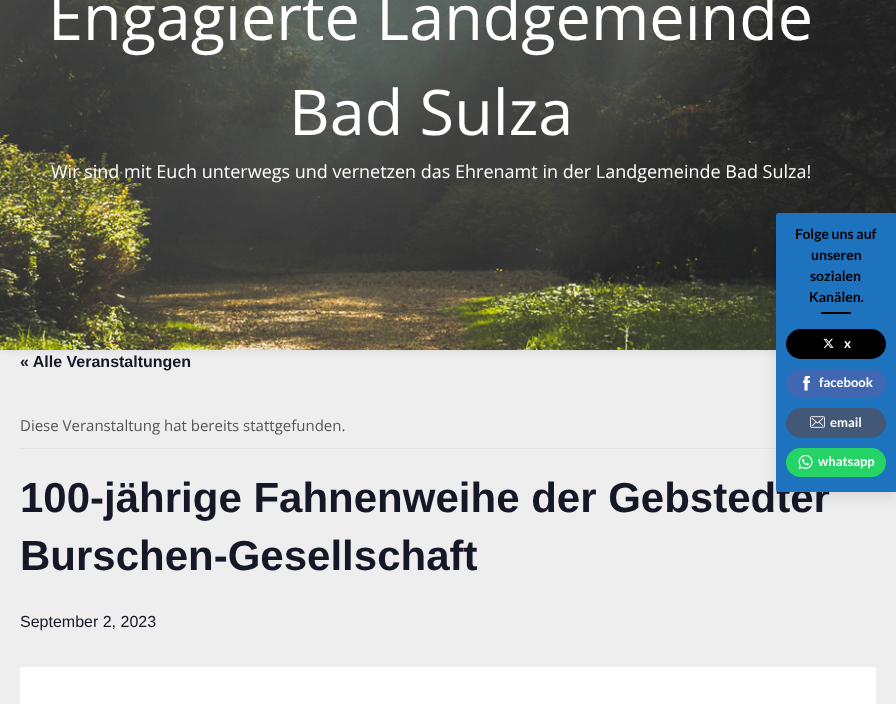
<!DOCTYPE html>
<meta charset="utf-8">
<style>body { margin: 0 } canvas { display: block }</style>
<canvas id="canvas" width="896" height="704"></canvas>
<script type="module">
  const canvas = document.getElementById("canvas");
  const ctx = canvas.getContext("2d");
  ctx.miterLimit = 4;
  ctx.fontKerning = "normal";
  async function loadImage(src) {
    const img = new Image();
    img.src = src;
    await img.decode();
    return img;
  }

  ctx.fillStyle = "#eeeeee";
  ctx.fillRect(0, 0, 896, 704);
  ctx.fillStyle = "rgba(0, 0, 0, 0.1)";
  ctx.filter = "blur(4px)";
  ctx.beginPath();
  ctx.rect(0, -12, 896, 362);
  ctx.fill();
  ctx.filter = "none";
  ctx.drawImage(await loadImage("img1.png"), 0, 0, 896, 350);
  ctx.font = "63px Open Sans";
  ctx.fillStyle = "#ffffff";
  ctx.fillText("Engagierte Landgemeinde", 48, 40);
  ctx.fillText("Bad Sulza", 289, 135);
  ctx.font = "18px Open Sans";
  ctx.fillText("Wir sind mit Euch unterwegs und vernetzen das Ehrenamt in der Landgemeinde Bad Sulza!", 51, 178);
  ctx.font = "bold 16px Liberation Sans";
  ctx.fillStyle = "#141827";
  ctx.fillText("« Alle Veranstaltungen", 20, 367);
  ctx.fillStyle = "#e4e4e4";
  ctx.fillRect(20, 448, 756, 1);
  ctx.font = "15px Open Sans";
  ctx.fillStyle = "#555555";
  ctx.fillText("Diese Veranstaltung hat bereits stattgefunden.", 20, 431);
  ctx.font = "bold 42px Liberation Sans";
  ctx.fillStyle = "#141827";
  ctx.fillText("100-jährige Fahnenweihe der Gebstedter", 20, 512);
  ctx.fillText("Burschen-Gesellschaft", 20, 570);
  ctx.font = "16px Liberation Sans";
  ctx.fillText("September 2, 2023", 20, 627);
  ctx.fillStyle = "#ffffff";
  ctx.fillRect(20, 667, 856, 37);
  ctx.fillStyle = "rgba(0, 0, 0, 0.1)";
  ctx.filter = "blur(6.5px)";
  ctx.beginPath();
  ctx.roundRect(776, 218, 120, 279, 3);
  ctx.fill();
  ctx.filter = "none";
  ctx.fillStyle = "#1e73be";
  ctx.beginPath();
  ctx.roundRect(776, 213, 120, 279, [3, 0, 0, 3]);
  ctx.fill();
  ctx.font = "bold 14px Lato";
  ctx.fillStyle = "#000000";
  ctx.fillText("Folge uns auf", 795, 239);
  ctx.fillText("unseren", 811, 260);
  ctx.fillText("sozialen", 810, 281);
  ctx.fillText("Kanälen.", 809, 302);
  ctx.fillRect(821, 312, 30, 2);
  ctx.beginPath();
  ctx.roundRect(786, 329, 100, 30, 15);
  ctx.fill();
  ctx.drawImage(await loadImage("img2.png"), 823, 338, 11, 10);
  ctx.font = "bold 13px Lato";
  ctx.fillStyle = "#ffffff";
  ctx.fillText("x", 844, 348);
  ctx.fillStyle = "#4267b2";
  ctx.beginPath();
  ctx.roundRect(786, 369, 100, 29, 14.5);
  ctx.fill();
  ctx.drawImage(await loadImage("img3.png"), 803, 376, 7, 15);
  ctx.fillStyle = "#ffffff";
  ctx.fillText("facebook", 819, 387);
  ctx.fillStyle = "#435877";
  ctx.beginPath();
  ctx.roundRect(786, 408, 100, 30, 15);
  ctx.fill();
  ctx.drawImage(await loadImage("img4.png"), 810, 416, 15, 12);
  ctx.fillStyle = "#ffffff";
  ctx.fillText("email", 830, 427);
  ctx.fillStyle = "#26d367";
  ctx.beginPath();
  ctx.roundRect(786, 448, 100, 29, 14.5);
  ctx.fill();
  ctx.drawImage(await loadImage("img5.png"), 798, 455, 15, 14);
  ctx.fillStyle = "#ffffff";
  ctx.fillText("whatsapp", 818, 466);
</script>
